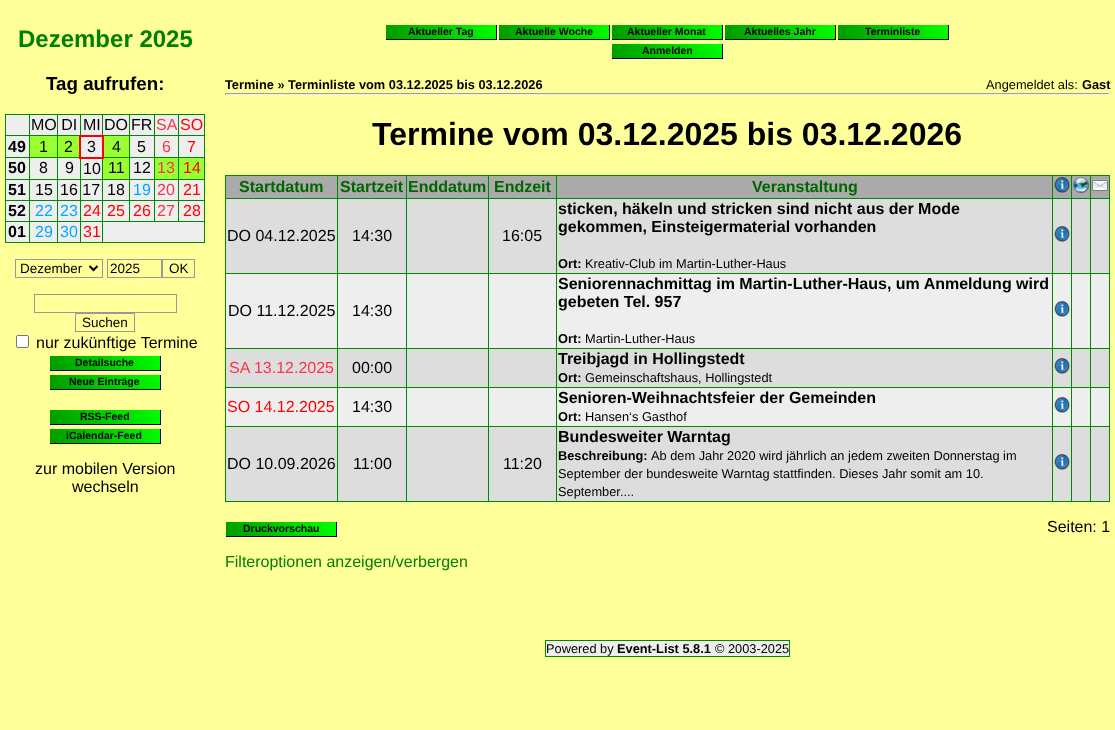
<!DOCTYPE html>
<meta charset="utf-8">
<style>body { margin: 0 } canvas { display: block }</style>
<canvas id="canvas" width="1115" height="730"></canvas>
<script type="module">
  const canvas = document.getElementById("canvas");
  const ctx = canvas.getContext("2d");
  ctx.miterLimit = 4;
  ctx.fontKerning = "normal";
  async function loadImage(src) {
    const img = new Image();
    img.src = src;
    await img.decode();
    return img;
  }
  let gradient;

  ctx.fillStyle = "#ffff99";
  ctx.fillRect(0, 0, 1115, 730);
  ctx.font = "bold 24px Liberation Sans";
  ctx.fillStyle = "#008000";
  ctx.fillText("Dezember 2025", 18, 47);
  ctx.font = "bold 18.75px Liberation Sans";
  ctx.fillStyle = "#000000";
  ctx.fillText("Tag aufrufen:", 46, 90);
  ctx.fillStyle = "#eeeeee";
  ctx.fillRect(6, 115, 198, 127);
  ctx.fillStyle = "#008800";
  ctx.fillRect(5, 114, 200, 1);
  ctx.fillRect(204, 114, 1, 129);
  ctx.fillRect(5, 242, 200, 1);
  ctx.fillRect(5, 114, 1, 129);
  ctx.fillRect(57, 135, 24, 1);
  ctx.fillRect(178, 179, 27, 1);
  ctx.fillRect(178, 200, 27, 1);
  ctx.fillRect(102, 221, 103, 1);
  ctx.fillRect(178, 200, 1, 22);
  ctx.fillRect(154, 200, 25, 1);
  ctx.fillRect(178, 179, 1, 22);
  ctx.fillRect(154, 179, 25, 1);
  ctx.fillRect(154, 200, 1, 22);
  ctx.fillRect(129, 200, 26, 1);
  ctx.fillRect(154, 179, 1, 22);
  ctx.fillRect(129, 179, 26, 1);
  ctx.fillRect(129, 200, 1, 22);
  ctx.fillRect(102, 200, 28, 1);
  ctx.fillRect(129, 179, 1, 22);
  ctx.fillRect(102, 179, 28, 1);
  ctx.fillRect(102, 221, 1, 22);
  ctx.fillRect(80, 221, 23, 1);
  ctx.fillRect(102, 200, 1, 22);
  ctx.fillRect(80, 200, 23, 1);
  ctx.fillRect(102, 179, 1, 22);
  ctx.fillRect(80, 179, 23, 1);
  ctx.fillRect(80, 221, 1, 22);
  ctx.fillRect(57, 221, 24, 1);
  ctx.fillRect(80, 200, 1, 22);
  ctx.fillRect(57, 200, 24, 1);
  ctx.fillRect(80, 179, 1, 22);
  ctx.fillRect(57, 179, 24, 1);
  ctx.fillRect(80, 157, 1, 23);
  ctx.fillRect(57, 157, 24, 1);
  ctx.fillRect(57, 221, 1, 22);
  ctx.fillRect(29, 221, 29, 1);
  ctx.fillRect(57, 200, 1, 22);
  ctx.fillRect(29, 200, 29, 1);
  ctx.fillRect(57, 179, 1, 22);
  ctx.fillRect(29, 179, 29, 1);
  ctx.fillRect(57, 157, 1, 23);
  ctx.fillRect(29, 157, 29, 1);
  ctx.fillRect(57, 135, 1, 23);
  ctx.fillRect(29, 135, 29, 1);
  ctx.fillRect(57, 114, 1, 22);
  ctx.fillRect(29, 221, 1, 22);
  ctx.fillRect(5, 221, 25, 1);
  ctx.fillRect(29, 200, 1, 22);
  ctx.fillRect(5, 200, 25, 1);
  ctx.fillRect(29, 179, 1, 22);
  ctx.fillRect(5, 179, 25, 1);
  ctx.fillRect(29, 157, 1, 23);
  ctx.fillRect(5, 157, 25, 1);
  ctx.fillRect(29, 135, 1, 23);
  ctx.fillRect(5, 135, 25, 1);
  ctx.fillRect(29, 114, 1, 22);
  ctx.font = "16px Liberation Sans";
  ctx.fillStyle = "#000000";
  ctx.fillText("MO DI", 31, 130);
  ctx.fillStyle = "#008800";
  ctx.fillRect(80, 114, 1, 22);
  ctx.fillStyle = "#000000";
  ctx.fillText("MI", 83, 130);
  ctx.fillStyle = "#008800";
  ctx.fillRect(178, 135, 27, 1);
  ctx.fillRect(178, 157, 27, 1);
  ctx.fillRect(178, 157, 1, 23);
  ctx.fillRect(154, 157, 25, 1);
  ctx.fillRect(178, 135, 1, 23);
  ctx.fillRect(154, 135, 25, 1);
  ctx.fillRect(154, 157, 1, 23);
  ctx.fillRect(129, 157, 26, 1);
  ctx.fillRect(154, 135, 1, 23);
  ctx.fillRect(129, 135, 26, 1);
  ctx.fillRect(129, 157, 1, 23);
  ctx.fillRect(102, 157, 28, 1);
  ctx.fillRect(129, 135, 1, 23);
  ctx.fillRect(102, 135, 28, 1);
  ctx.fillRect(102, 114, 1, 22);
  ctx.fillStyle = "#000000";
  ctx.fillText("DO", 104, 130);
  ctx.fillStyle = "#008800";
  ctx.fillRect(129, 114, 1, 22);
  ctx.fillStyle = "#000000";
  ctx.fillText("FR", 131, 130);
  ctx.fillStyle = "#008800";
  ctx.fillRect(154, 114, 1, 22);
  ctx.fillStyle = "#fb3448";
  ctx.fillText("SA", 156, 130);
  ctx.fillStyle = "#008800";
  ctx.fillRect(178, 114, 1, 22);
  ctx.fillStyle = "#ff0000";
  ctx.fillText("SO", 180, 130);
  ctx.font = "bold 16px Liberation Sans";
  ctx.fillStyle = "#000000";
  ctx.fillText("49", 8, 152);
  ctx.fillStyle = "#99ff33";
  ctx.fillRect(30, 136, 27, 21);
  ctx.font = "16px Liberation Sans";
  ctx.fillStyle = "#000000";
  ctx.fillText("1", 39, 152);
  ctx.fillStyle = "#99ff33";
  ctx.fillRect(58, 136, 21, 21);
  ctx.fillStyle = "#000000";
  ctx.fillText("2", 64, 152);
  ctx.fillStyle = "#ff0000";
  ctx.fillRect(79, 135, 25, 2);
  ctx.fillStyle = "#99ff33";
  ctx.fillRect(103, 158, 26, 21);
  ctx.fillStyle = "#008800";
  ctx.fillRect(102, 157, 1, 23);
  ctx.fillStyle = "#ff0000";
  ctx.fillRect(102, 135, 2, 24);
  ctx.fillRect(79, 157, 25, 2);
  ctx.fillRect(79, 135, 2, 24);
  ctx.fillStyle = "#000000";
  ctx.fillText("3", 87, 152);
  ctx.fillStyle = "#99ff33";
  ctx.fillRect(104, 136, 25, 21);
  ctx.fillStyle = "#000000";
  ctx.fillText("4", 112, 152);
  ctx.fillText("5", 137, 152);
  ctx.fillStyle = "#fb3448";
  ctx.fillText("6", 162, 152);
  ctx.fillStyle = "#ff0000";
  ctx.fillText("7", 187, 152);
  ctx.font = "bold 16px Liberation Sans";
  ctx.fillStyle = "#000000";
  ctx.fillText("50", 8, 173);
  ctx.font = "16px Liberation Sans";
  ctx.fillText("8", 39, 173);
  ctx.fillText("9", 65, 173);
  ctx.fillText("10", 83, 174);
  ctx.fillText("11", 108, 173);
  ctx.fillText("12", 133, 173);
  ctx.fillStyle = "#99ff33";
  ctx.fillRect(155, 158, 23, 21);
  ctx.fillStyle = "#fb3448";
  ctx.fillText("13", 157, 173);
  ctx.fillStyle = "#99ff33";
  ctx.fillRect(179, 158, 25, 21);
  ctx.fillStyle = "#ff0000";
  ctx.fillText("14", 183, 173);
  ctx.font = "bold 16px Liberation Sans";
  ctx.fillStyle = "#000000";
  ctx.fillText("51", 8, 195);
  ctx.font = "16px Liberation Sans";
  ctx.fillText("15", 35, 195);
  ctx.fillText("16 17", 60, 195);
  ctx.fillText("18", 107, 195);
  ctx.fillStyle = "#00aaff";
  ctx.fillText("19", 133, 195);
  ctx.fillStyle = "#fb3448";
  ctx.fillText("20", 157, 195);
  ctx.fillStyle = "#ff0000";
  ctx.fillText("21", 183, 195);
  ctx.font = "bold 16px Liberation Sans";
  ctx.fillStyle = "#000000";
  ctx.fillText("52", 8, 216);
  ctx.font = "16px Liberation Sans";
  ctx.fillStyle = "#00aaff";
  ctx.fillText("22", 35, 216);
  ctx.fillText("23", 60, 216);
  ctx.fillStyle = "#ff0000";
  ctx.fillText("24", 83, 216);
  ctx.fillText("25", 107, 216);
  ctx.fillText("26", 133, 216);
  ctx.fillStyle = "#fb3448";
  ctx.fillText("27", 157, 216);
  ctx.fillStyle = "#ff0000";
  ctx.fillText("28", 183, 216);
  ctx.font = "bold 16px Liberation Sans";
  ctx.fillStyle = "#000000";
  ctx.fillText("01", 8, 237);
  ctx.font = "16px Liberation Sans";
  ctx.fillStyle = "#00aaff";
  ctx.fillText("29", 35, 237);
  ctx.fillText("30", 60, 237);
  ctx.fillStyle = "#ff0000";
  ctx.fillText("31", 83, 237);
  ctx.strokeStyle = "#999999";
  ctx.strokeRect(15.5, 259.5, 87, 18);
  ctx.beginPath();
  ctx.moveTo(89.5, 266);
  ctx.lineTo(93.5, 270);
  ctx.lineTo(97.5, 266);
  ctx.strokeStyle = "#000000";
  ctx.lineWidth = 2;
  ctx.stroke();
  ctx.font = "13.5px Liberation Sans";
  ctx.fillStyle = "#000000";
  ctx.fillText("Dezember", 20, 273);
  ctx.strokeStyle = "#999999";
  ctx.lineWidth = 1;
  ctx.strokeRect(107.5, 259.5, 54, 18);
  ctx.fillText("2025", 110, 273);
  ctx.strokeRect(162.5, 259.5, 32, 18);
  ctx.fillText("OK", 169, 273);
  ctx.strokeRect(34.5, 294.5, 142, 18);
  ctx.strokeRect(75.5, 313.5, 59, 18);
  ctx.fillText("Suchen", 82, 327);
  ctx.fillStyle = "#ffffff";
  ctx.beginPath();
  ctx.roundRect(16.5, 335.5, 12, 12, 1.5);
  ctx.fill();
  ctx.strokeStyle = "#767676";
  ctx.stroke();
  ctx.font = "16px Liberation Sans";
  ctx.fillStyle = "#000000";
  ctx.fillText("nur zukünftige Termine", 36, 348);
  gradient = ctx.createLinearGradient(61, 389, 149, 337);
  gradient.addColorStop(0, "#009900");
  gradient.addColorStop(1, "#00ff00");
  ctx.fillStyle = gradient;
  ctx.fillRect(50, 356, 110, 14);
  ctx.fillStyle = "#000000";
  ctx.fillRect(160, 356, 1, 15);
  ctx.fillRect(50, 370, 111, 1);
  ctx.font = "bold 10.5px Liberation Sans";
  ctx.fillText("Detailsuche", 75, 366);
  gradient = ctx.createLinearGradient(61, 408, 149, 356);
  gradient.addColorStop(0, "#009900");
  gradient.addColorStop(1, "#00ff00");
  ctx.fillStyle = gradient;
  ctx.fillRect(50, 375, 110, 14);
  ctx.fillStyle = "#000000";
  ctx.fillRect(160, 375, 1, 15);
  ctx.fillRect(50, 389, 111, 1);
  ctx.fillText("Neue Einträge", 69, 385);
  gradient = ctx.createLinearGradient(61, 443, 149, 391);
  gradient.addColorStop(0, "#009900");
  gradient.addColorStop(1, "#00ff00");
  ctx.fillStyle = gradient;
  ctx.fillRect(50, 410, 110, 14);
  ctx.fillStyle = "#000000";
  ctx.fillRect(160, 410, 1, 15);
  ctx.fillRect(50, 424, 111, 1);
  ctx.fillText("RSS-Feed", 80, 420);
  gradient = ctx.createLinearGradient(61, 462, 149, 410);
  gradient.addColorStop(0, "#009900");
  gradient.addColorStop(1, "#00ff00");
  ctx.fillStyle = gradient;
  ctx.fillRect(50, 429, 110, 14);
  ctx.fillStyle = "#000000";
  ctx.fillRect(160, 429, 1, 15);
  ctx.fillRect(50, 443, 111, 1);
  ctx.fillText("iCalendar-Feed", 66, 439);
  ctx.font = "16px Liberation Sans";
  ctx.fillText("zur mobilen Version", 35, 474);
  ctx.fillText("wechseln", 72, 492);
  gradient = ctx.createLinearGradient(397, 58, 485, 6.4);
  gradient.addColorStop(0, "#009900");
  gradient.addColorStop(1, "#00ff00");
  ctx.fillStyle = gradient;
  ctx.fillRect(386, 25, 110, 14);
  ctx.fillStyle = "#000000";
  ctx.fillRect(496, 25, 1, 15);
  ctx.fillRect(386, 39, 111, 1);
  ctx.font = "bold 10.5px Liberation Sans";
  ctx.fillText("Aktueller Tag", 408, 35);
  gradient = ctx.createLinearGradient(510, 58, 598, 6.4);
  gradient.addColorStop(0, "#009900");
  gradient.addColorStop(1, "#00ff00");
  ctx.fillStyle = gradient;
  ctx.fillRect(499, 25, 110, 14);
  ctx.fillStyle = "#000000";
  ctx.fillRect(609, 25, 1, 15);
  ctx.fillRect(499, 39, 111, 1);
  ctx.fillText("Aktuelle Woche", 515, 35);
  gradient = ctx.createLinearGradient(623, 58, 711, 6.4);
  gradient.addColorStop(0, "#009900");
  gradient.addColorStop(1, "#00ff00");
  ctx.fillStyle = gradient;
  ctx.fillRect(612, 25, 110, 14);
  ctx.fillStyle = "#000000";
  ctx.fillRect(722, 25, 1, 15);
  ctx.fillRect(612, 39, 111, 1);
  ctx.fillText("Aktueller Monat", 627, 35);
  gradient = ctx.createLinearGradient(736, 58, 824, 6.4);
  gradient.addColorStop(0, "#009900");
  gradient.addColorStop(1, "#00ff00");
  ctx.fillStyle = gradient;
  ctx.fillRect(725, 25, 110, 14);
  ctx.fillStyle = "#000000";
  ctx.fillRect(835, 25, 1, 15);
  ctx.fillRect(725, 39, 111, 1);
  ctx.fillText("Aktuelles Jahr", 744, 35);
  gradient = ctx.createLinearGradient(849, 58, 937, 6.4);
  gradient.addColorStop(0, "#009900");
  gradient.addColorStop(1, "#00ff00");
  ctx.fillStyle = gradient;
  ctx.fillRect(838, 25, 110, 14);
  ctx.fillStyle = "#000000";
  ctx.fillRect(948, 25, 1, 15);
  ctx.fillRect(838, 39, 111, 1);
  ctx.fillText("Terminliste", 865, 35);
  gradient = ctx.createLinearGradient(623, 77, 711, 25);
  gradient.addColorStop(0, "#009900");
  gradient.addColorStop(1, "#00ff00");
  ctx.fillStyle = gradient;
  ctx.fillRect(612, 44, 110, 14);
  ctx.fillStyle = "#000000";
  ctx.fillRect(722, 44, 1, 15);
  ctx.fillRect(612, 58, 111, 1);
  ctx.fillText("Anmelden", 642, 54);
  ctx.font = "bold 12.8px Liberation Sans";
  ctx.fillText("Termine » Terminliste vom 03.12.2025 bis 03.12.2026", 225, 89);
  ctx.font = "12.8px Liberation Sans";
  ctx.fillText("Angemeldet als:", 986, 89);
  ctx.font = "bold 12.8px Liberation Sans";
  ctx.fillText("Gast", 1082, 89);
  ctx.fillStyle = "#9f9f9f";
  ctx.fillRect(225, 93, 885, 1);
  ctx.fillStyle = "#eeeeee";
  ctx.fillRect(1109, 93, 1, 2);
  ctx.fillRect(225, 94, 885, 1);
  ctx.fillStyle = "#9f9f9f";
  ctx.fillRect(225, 93, 1, 2);
  ctx.font = "bold 32px Liberation Sans";
  ctx.fillStyle = "#000000";
  ctx.fillText("Termine vom 03.12.2025 bis 03.12.2026", 372, 145);
  ctx.fillStyle = "#008800";
  ctx.fillRect(225, 175, 885, 1);
  ctx.fillRect(1109, 175, 1, 327);
  ctx.fillRect(225, 501, 885, 1);
  ctx.fillRect(225, 175, 1, 327);
  ctx.fillStyle = "#aaaaaa";
  ctx.fillRect(226, 176, 111, 22);
  ctx.font = "bold 16px Liberation Sans";
  ctx.fillStyle = "#006600";
  ctx.fillText("Startdatum", 239, 192);
  ctx.fillStyle = "#aaaaaa";
  ctx.fillRect(338, 176, 68, 22);
  ctx.fillStyle = "#008800";
  ctx.fillRect(1090, 198, 20, 1);
  ctx.fillRect(1090, 273, 20, 1);
  ctx.fillRect(1090, 348, 20, 1);
  ctx.fillRect(1090, 387, 20, 1);
  ctx.fillRect(1090, 426, 20, 1);
  ctx.fillRect(1090, 426, 1, 76);
  ctx.fillRect(1071, 426, 20, 1);
  ctx.fillRect(1090, 387, 1, 40);
  ctx.fillRect(1071, 387, 20, 1);
  ctx.fillRect(1090, 348, 1, 40);
  ctx.fillRect(1071, 348, 20, 1);
  ctx.fillRect(1090, 273, 1, 76);
  ctx.fillRect(1071, 273, 20, 1);
  ctx.fillRect(1090, 198, 1, 76);
  ctx.fillRect(1071, 198, 20, 1);
  ctx.fillRect(1071, 426, 1, 76);
  ctx.fillRect(1052, 426, 20, 1);
  ctx.fillRect(1071, 387, 1, 40);
  ctx.fillRect(1052, 387, 20, 1);
  ctx.fillRect(1071, 348, 1, 40);
  ctx.fillRect(1052, 348, 20, 1);
  ctx.fillRect(1071, 273, 1, 76);
  ctx.fillRect(1052, 273, 20, 1);
  ctx.fillRect(1071, 198, 1, 76);
  ctx.fillRect(1052, 198, 20, 1);
  ctx.fillRect(1052, 426, 1, 76);
  ctx.fillRect(556, 426, 497, 1);
  ctx.fillRect(1052, 387, 1, 40);
  ctx.fillRect(556, 387, 497, 1);
  ctx.fillRect(1052, 348, 1, 40);
  ctx.fillRect(556, 348, 497, 1);
  ctx.fillRect(1052, 273, 1, 76);
  ctx.fillRect(556, 273, 497, 1);
  ctx.fillRect(1052, 198, 1, 76);
  ctx.fillRect(556, 198, 497, 1);
  ctx.fillRect(556, 426, 1, 76);
  ctx.fillRect(488, 426, 69, 1);
  ctx.fillRect(556, 387, 1, 40);
  ctx.fillRect(488, 387, 69, 1);
  ctx.fillRect(556, 348, 1, 40);
  ctx.fillRect(488, 348, 69, 1);
  ctx.fillRect(556, 273, 1, 76);
  ctx.fillRect(488, 273, 69, 1);
  ctx.fillRect(556, 198, 1, 76);
  ctx.fillRect(488, 198, 69, 1);
  ctx.fillRect(488, 426, 1, 76);
  ctx.fillRect(406, 426, 83, 1);
  ctx.fillRect(488, 387, 1, 40);
  ctx.fillRect(406, 387, 83, 1);
  ctx.fillRect(488, 348, 1, 40);
  ctx.fillRect(406, 348, 83, 1);
  ctx.fillRect(488, 273, 1, 76);
  ctx.fillRect(406, 273, 83, 1);
  ctx.fillRect(488, 198, 1, 76);
  ctx.fillRect(406, 198, 83, 1);
  ctx.fillRect(406, 426, 1, 76);
  ctx.fillRect(337, 426, 70, 1);
  ctx.fillRect(406, 387, 1, 40);
  ctx.fillRect(337, 387, 70, 1);
  ctx.fillRect(406, 348, 1, 40);
  ctx.fillRect(337, 348, 70, 1);
  ctx.fillRect(406, 273, 1, 76);
  ctx.fillRect(337, 273, 70, 1);
  ctx.fillRect(406, 198, 1, 76);
  ctx.fillRect(337, 198, 70, 1);
  ctx.fillRect(337, 426, 1, 76);
  ctx.fillRect(225, 426, 113, 1);
  ctx.fillRect(337, 387, 1, 40);
  ctx.fillRect(225, 387, 113, 1);
  ctx.fillRect(337, 348, 1, 40);
  ctx.fillRect(225, 348, 113, 1);
  ctx.fillRect(337, 273, 1, 76);
  ctx.fillRect(225, 273, 113, 1);
  ctx.fillRect(337, 198, 1, 76);
  ctx.fillRect(225, 198, 113, 1);
  ctx.fillRect(337, 175, 1, 24);
  ctx.fillStyle = "#006600";
  ctx.fillText("Startzeit", 340, 192);
  ctx.fillStyle = "#aaaaaa";
  ctx.fillRect(407, 176, 81, 22);
  ctx.fillStyle = "#008800";
  ctx.fillRect(406, 175, 1, 24);
  ctx.fillStyle = "#006600";
  ctx.fillText("Enddatum", 408, 192);
  ctx.fillStyle = "#aaaaaa";
  ctx.fillRect(489, 176, 67, 22);
  ctx.fillStyle = "#008800";
  ctx.fillRect(488, 175, 1, 24);
  ctx.fillStyle = "#006600";
  ctx.fillText("Endzeit", 494, 192);
  ctx.fillStyle = "#aaaaaa";
  ctx.fillRect(557, 176, 495, 22);
  ctx.fillStyle = "#008800";
  ctx.fillRect(556, 175, 1, 24);
  ctx.fillStyle = "#006600";
  ctx.fillText("Veranstaltung", 752, 192);
  ctx.fillStyle = "#aaaaaa";
  ctx.fillRect(1053, 176, 18, 22);
  ctx.fillStyle = "#008800";
  ctx.fillRect(1052, 175, 1, 24);
  ctx.drawImage(await loadImage("img1.png"), 1054, 177, 16, 16);
  ctx.fillStyle = "#aaaaaa";
  ctx.fillRect(1072, 176, 18, 22);
  ctx.fillStyle = "#008800";
  ctx.fillRect(1071, 175, 1, 24);
  ctx.drawImage(await loadImage("img2.png"), 1073, 177, 16, 16);
  ctx.fillStyle = "#aaaaaa";
  ctx.fillRect(1091, 176, 18, 22);
  ctx.fillStyle = "#008800";
  ctx.fillRect(1090, 175, 1, 24);
  ctx.drawImage(await loadImage("img3.png"), 1092, 180, 16, 11);
  ctx.fillStyle = "#dddddd";
  ctx.fillRect(226, 199, 111, 74);
  ctx.font = "16px Liberation Sans";
  ctx.fillStyle = "#000000";
  ctx.fillText("DO 04.12.2025", 227, 241);
  ctx.fillStyle = "#dddddd";
  ctx.fillRect(338, 199, 68, 74);
  ctx.fillStyle = "#000000";
  ctx.fillText("14:30", 352, 241);
  ctx.fillStyle = "#dddddd";
  ctx.fillRect(407, 199, 81, 74);
  ctx.fillRect(489, 199, 67, 74);
  ctx.fillStyle = "#000000";
  ctx.fillText("16:05", 502, 241);
  ctx.fillStyle = "#dddddd";
  ctx.fillRect(557, 199, 495, 74);
  ctx.font = "bold 16px Liberation Sans";
  ctx.fillStyle = "#000000";
  ctx.fillText("sticken, häkeln und stricken sind nicht aus der Mode", 558, 214);
  ctx.fillText("gekommen, Einsteigermaterial vorhanden", 558, 232);
  ctx.font = "bold 12.8px Liberation Sans";
  ctx.fillText("Ort:", 558, 268);
  ctx.font = "12.8px Liberation Sans";
  ctx.fillText("Kreativ-Club im Martin-Luther-Haus", 585, 268);
  ctx.fillStyle = "#dddddd";
  ctx.fillRect(1053, 199, 18, 74);
  ctx.drawImage(await loadImage("img4.png"), 1054, 226, 16, 16);
  ctx.fillRect(1072, 199, 18, 74);
  ctx.fillRect(1091, 199, 18, 74);
  ctx.fillStyle = "#eeeeee";
  ctx.fillRect(226, 274, 111, 74);
  ctx.font = "16px Liberation Sans";
  ctx.fillStyle = "#000000";
  ctx.fillText("DO 11.12.2025", 228, 316);
  ctx.fillStyle = "#eeeeee";
  ctx.fillRect(338, 274, 68, 74);
  ctx.fillStyle = "#000000";
  ctx.fillText("14:30", 352, 316);
  ctx.fillStyle = "#eeeeee";
  ctx.fillRect(407, 274, 81, 74);
  ctx.fillRect(489, 274, 67, 74);
  ctx.fillRect(557, 274, 495, 74);
  ctx.font = "bold 16px Liberation Sans";
  ctx.fillStyle = "#000000";
  ctx.fillText("Seniorennachmittag im Martin-Luther-Haus, um Anmeldung wird", 558, 289);
  ctx.fillText("gebeten Tel. 957", 558, 307);
  ctx.font = "bold 12.8px Liberation Sans";
  ctx.fillText("Ort:", 558, 343);
  ctx.font = "12.8px Liberation Sans";
  ctx.fillText("Martin-Luther-Haus", 585, 343);
  ctx.fillStyle = "#eeeeee";
  ctx.fillRect(1053, 274, 18, 74);
  ctx.drawImage(await loadImage("img5.png"), 1054, 301, 16, 16);
  ctx.fillRect(1072, 274, 18, 74);
  ctx.fillRect(1091, 274, 18, 74);
  ctx.fillStyle = "#dddddd";
  ctx.fillRect(226, 349, 111, 38);
  ctx.font = "16px Liberation Sans";
  ctx.fillStyle = "#fb3448";
  ctx.fillText("SA 13.12.2025", 229, 373);
  ctx.fillStyle = "#dddddd";
  ctx.fillRect(338, 349, 68, 38);
  ctx.fillStyle = "#000000";
  ctx.fillText("00:00", 352, 373);
  ctx.fillStyle = "#dddddd";
  ctx.fillRect(407, 349, 81, 38);
  ctx.fillRect(489, 349, 67, 38);
  ctx.fillRect(557, 349, 495, 38);
  ctx.font = "bold 16px Liberation Sans";
  ctx.fillStyle = "#000000";
  ctx.fillText("Treibjagd in Hollingstedt", 558, 364);
  ctx.font = "bold 12.8px Liberation Sans";
  ctx.fillText("Ort:", 558, 382);
  ctx.font = "12.8px Liberation Sans";
  ctx.fillText("Gemeinschaftshaus, Hollingstedt", 585, 382);
  ctx.fillStyle = "#dddddd";
  ctx.fillRect(1053, 349, 18, 38);
  ctx.drawImage(await loadImage("img4.png"), 1054, 358, 16, 16);
  ctx.fillRect(1072, 349, 18, 38);
  ctx.fillRect(1091, 349, 18, 38);
  ctx.fillStyle = "#eeeeee";
  ctx.fillRect(226, 388, 111, 38);
  ctx.font = "16px Liberation Sans";
  ctx.fillStyle = "#ff0000";
  ctx.fillText("SO 14.12.2025", 227, 412);
  ctx.fillStyle = "#eeeeee";
  ctx.fillRect(338, 388, 68, 38);
  ctx.fillStyle = "#000000";
  ctx.fillText("14:30", 352, 412);
  ctx.fillStyle = "#eeeeee";
  ctx.fillRect(407, 388, 81, 38);
  ctx.fillRect(489, 388, 67, 38);
  ctx.fillRect(557, 388, 495, 38);
  ctx.font = "bold 16px Liberation Sans";
  ctx.fillStyle = "#000000";
  ctx.fillText("Senioren-Weihnachtsfeier der Gemeinden", 558, 403);
  ctx.font = "bold 12.8px Liberation Sans";
  ctx.fillText("Ort:", 558, 421);
  ctx.font = "12.8px Liberation Sans";
  ctx.fillText("Hansen‘s Gasthof", 585, 421);
  ctx.fillStyle = "#eeeeee";
  ctx.fillRect(1053, 388, 18, 38);
  ctx.drawImage(await loadImage("img5.png"), 1054, 397, 16, 16);
  ctx.fillRect(1072, 388, 18, 38);
  ctx.fillRect(1091, 388, 18, 38);
  ctx.fillStyle = "#dddddd";
  ctx.fillRect(226, 427, 111, 74);
  ctx.font = "16px Liberation Sans";
  ctx.fillStyle = "#000000";
  ctx.fillText("DO 10.09.2026", 227, 469);
  ctx.fillStyle = "#dddddd";
  ctx.fillRect(338, 427, 68, 74);
  ctx.fillStyle = "#000000";
  ctx.fillText("11:00", 353, 469);
  ctx.fillStyle = "#dddddd";
  ctx.fillRect(407, 427, 81, 74);
  ctx.fillRect(489, 427, 67, 74);
  ctx.fillStyle = "#000000";
  ctx.fillText("11:20", 503, 469);
  ctx.fillStyle = "#dddddd";
  ctx.fillRect(557, 427, 495, 74);
  ctx.font = "bold 16px Liberation Sans";
  ctx.fillStyle = "#000000";
  ctx.fillText("Bundesweiter Warntag", 558, 442);
  ctx.font = "bold 12.8px Liberation Sans";
  ctx.fillText("Beschreibung:", 558, 460);
  ctx.font = "12.8px Liberation Sans";
  ctx.fillText("Ab dem Jahr 2020 wird jährlich an jedem zweiten Donnerstag im", 651, 460);
  ctx.fillText("September der bundesweite Warntag stattfinden. Dieses Jahr somit am 10.", 558, 478);
  ctx.fillText("September....", 558, 496);
  ctx.fillStyle = "#dddddd";
  ctx.fillRect(1053, 427, 18, 74);
  ctx.drawImage(await loadImage("img4.png"), 1054, 454, 16, 16);
  ctx.fillRect(1072, 427, 18, 74);
  ctx.fillRect(1091, 427, 18, 74);
  gradient = ctx.createLinearGradient(237, 555, 325, 503);
  gradient.addColorStop(0, "#009900");
  gradient.addColorStop(1, "#00ff00");
  ctx.fillStyle = gradient;
  ctx.fillRect(226, 522, 110, 14);
  ctx.fillStyle = "#000000";
  ctx.fillRect(336, 522, 1, 15);
  ctx.fillRect(226, 536, 111, 1);
  ctx.font = "bold 10.5px Liberation Sans";
  ctx.fillText("Druckvorschau", 243, 532);
  ctx.font = "16px Liberation Sans";
  ctx.fillText("Seiten: 1", 1047, 532);
  ctx.fillStyle = "#008000";
  ctx.fillText("Filteroptionen anzeigen/verbergen", 225, 567);
  ctx.fillStyle = "#eeeeee";
  ctx.fillRect(546, 641, 243, 15);
  ctx.font = "12.8px Liberation Sans";
  ctx.fillStyle = "#000000";
  ctx.fillText("Powered by", 546, 653);
  ctx.fillStyle = "#008800";
  ctx.fillRect(545, 656, 166, 1);
  ctx.fillRect(545, 640, 245, 1);
  ctx.fillRect(545, 640, 1, 17);
  ctx.font = "bold 12.8px Liberation Sans";
  ctx.fillStyle = "#000000";
  ctx.fillText("Event-List 5.8.1", 617, 653);
  ctx.font = "12.8px Liberation Sans";
  ctx.fillText("© 2003-2025", 715, 653);
  ctx.fillStyle = "#008800";
  ctx.fillRect(789, 640, 1, 17);
  ctx.fillRect(711, 656, 79, 1);
</script>
